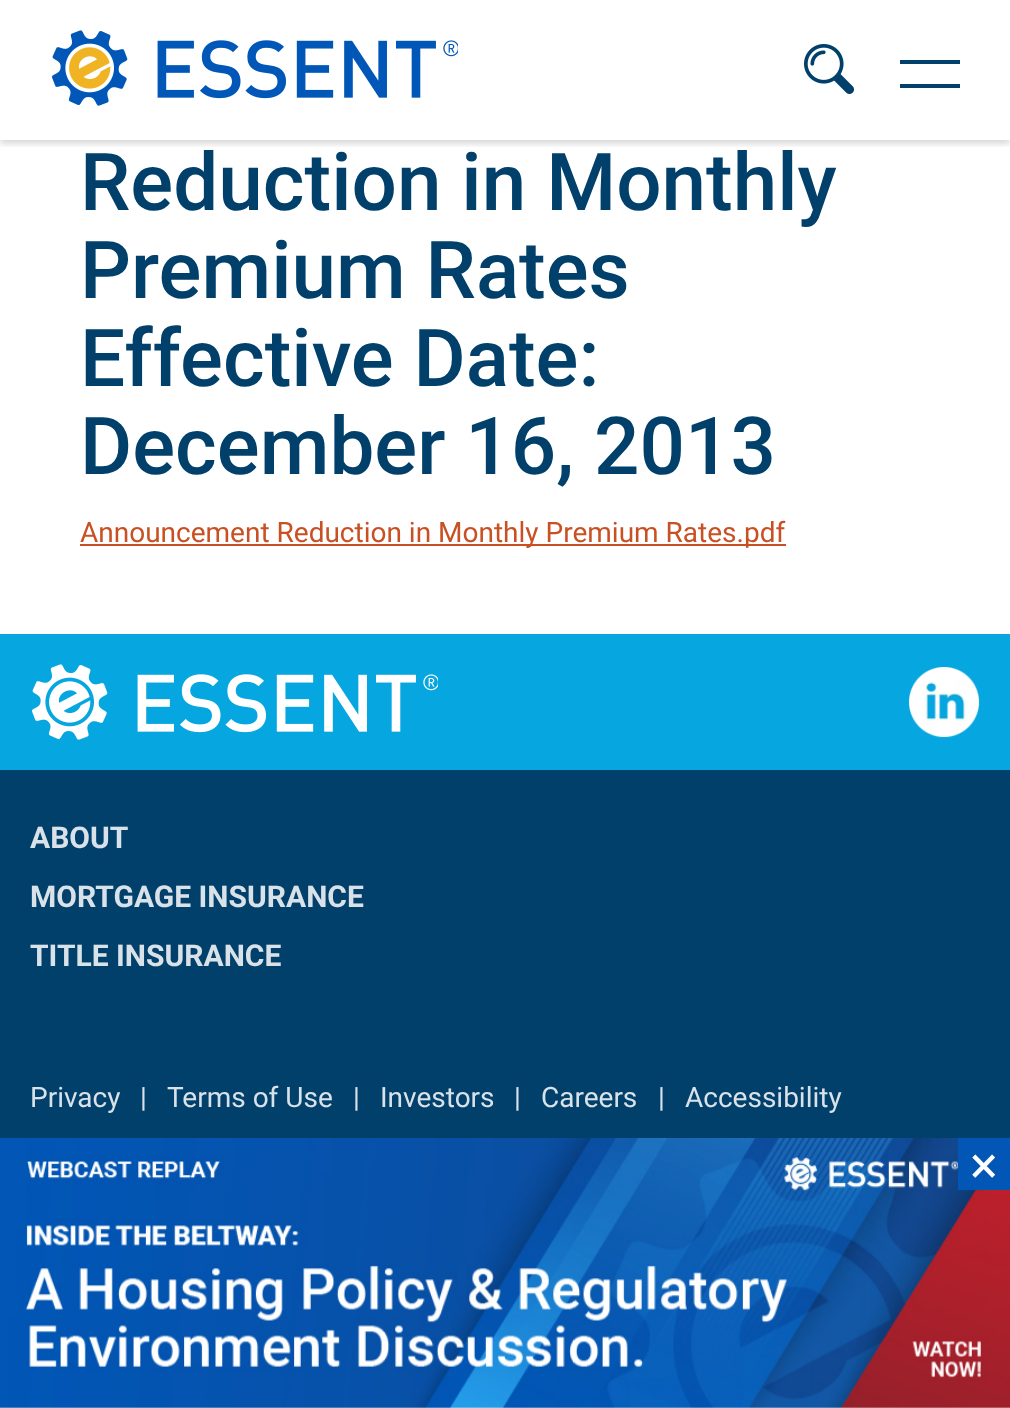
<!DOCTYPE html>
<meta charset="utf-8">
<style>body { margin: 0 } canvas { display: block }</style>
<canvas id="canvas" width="1010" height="1408"></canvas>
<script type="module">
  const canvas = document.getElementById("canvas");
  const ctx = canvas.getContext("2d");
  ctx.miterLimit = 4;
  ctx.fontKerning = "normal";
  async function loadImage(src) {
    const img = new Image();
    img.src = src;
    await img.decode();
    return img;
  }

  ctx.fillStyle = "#ffffff";
  ctx.fillRect(0, 0, 1010, 1408);
  ctx.save();
  ctx.beginPath();
  ctx.rect(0, 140, 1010, 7);
  ctx.clip();
  ctx.fillStyle = "rgba(0, 0, 0, 0.15)";
  ctx.filter = "blur(3px)";
  ctx.beginPath();
  ctx.rect(0, 4, 1010, 140);
  ctx.fill();
  ctx.filter = "none";
  ctx.restore();
  ctx.drawImage(await loadImage("img1.png"), 52, 30, 406, 76);
  ctx.drawImage(await loadImage("img2.png"), 804, 44, 50, 50);
  ctx.fillStyle = "#00406b";
  ctx.fillRect(900, 60, 60, 4);
  ctx.fillRect(900, 84, 60, 4);
  ctx.font = "500 80px Roboto";
  ctx.fillText("Reduction in Monthly", 80, 210);
  ctx.fillText("Premium Rates", 80, 298);
  ctx.fillText("Effective Date:", 80, 386);
  ctx.fillText("December 16, 2013", 80, 474);
  ctx.fillStyle = "#c95023";
  ctx.fillRect(80, 544, 706, 2);
  ctx.font = "28px Roboto";
  ctx.fillText("Announcement Reduction in Monthly Premium Rates.pdf", 80, 542);
  ctx.fillStyle = "#06a6e0";
  ctx.fillRect(0, 634, 1010, 136);
  ctx.drawImage(await loadImage("img3.png"), 32, 664, 406, 76);
  ctx.drawImage(await loadImage("img4.png"), 909, 667, 71, 71);
  ctx.fillStyle = "#00406b";
  ctx.fillRect(0, 770, 1010, 368);
  ctx.font = "bold 30px Roboto";
  ctx.fillStyle = "#d9e2e9";
  ctx.fillText("ABOUT", 30, 848);
  ctx.fillText("MORTGAGE INSURANCE", 30, 907);
  ctx.fillText("TITLE INSURANCE", 30, 966);
  ctx.font = "28px Roboto";
  ctx.fillText("Privacy", 30, 1107);
  ctx.fillText("|", 140, 1107);
  ctx.fillText("Terms of Use", 167, 1107);
  ctx.fillText("|", 353, 1107);
  ctx.fillText("Investors", 380, 1107);
  ctx.fillText("|", 514, 1107);
  ctx.fillText("Careers", 541, 1107);
  ctx.fillText("|", 658, 1107);
  ctx.fillText("Accessibility", 685, 1107);
  ctx.drawImage(await loadImage("img5.png"), 0, 1138, 1010, 270);
  ctx.fillStyle = "#0256b6";
  ctx.fillRect(958, 1138, 52, 52);
  ctx.font = "52px Roboto";
  ctx.fillStyle = "#ffffff";
  ctx.fillText("×︎", 970, 1183);
</script>
